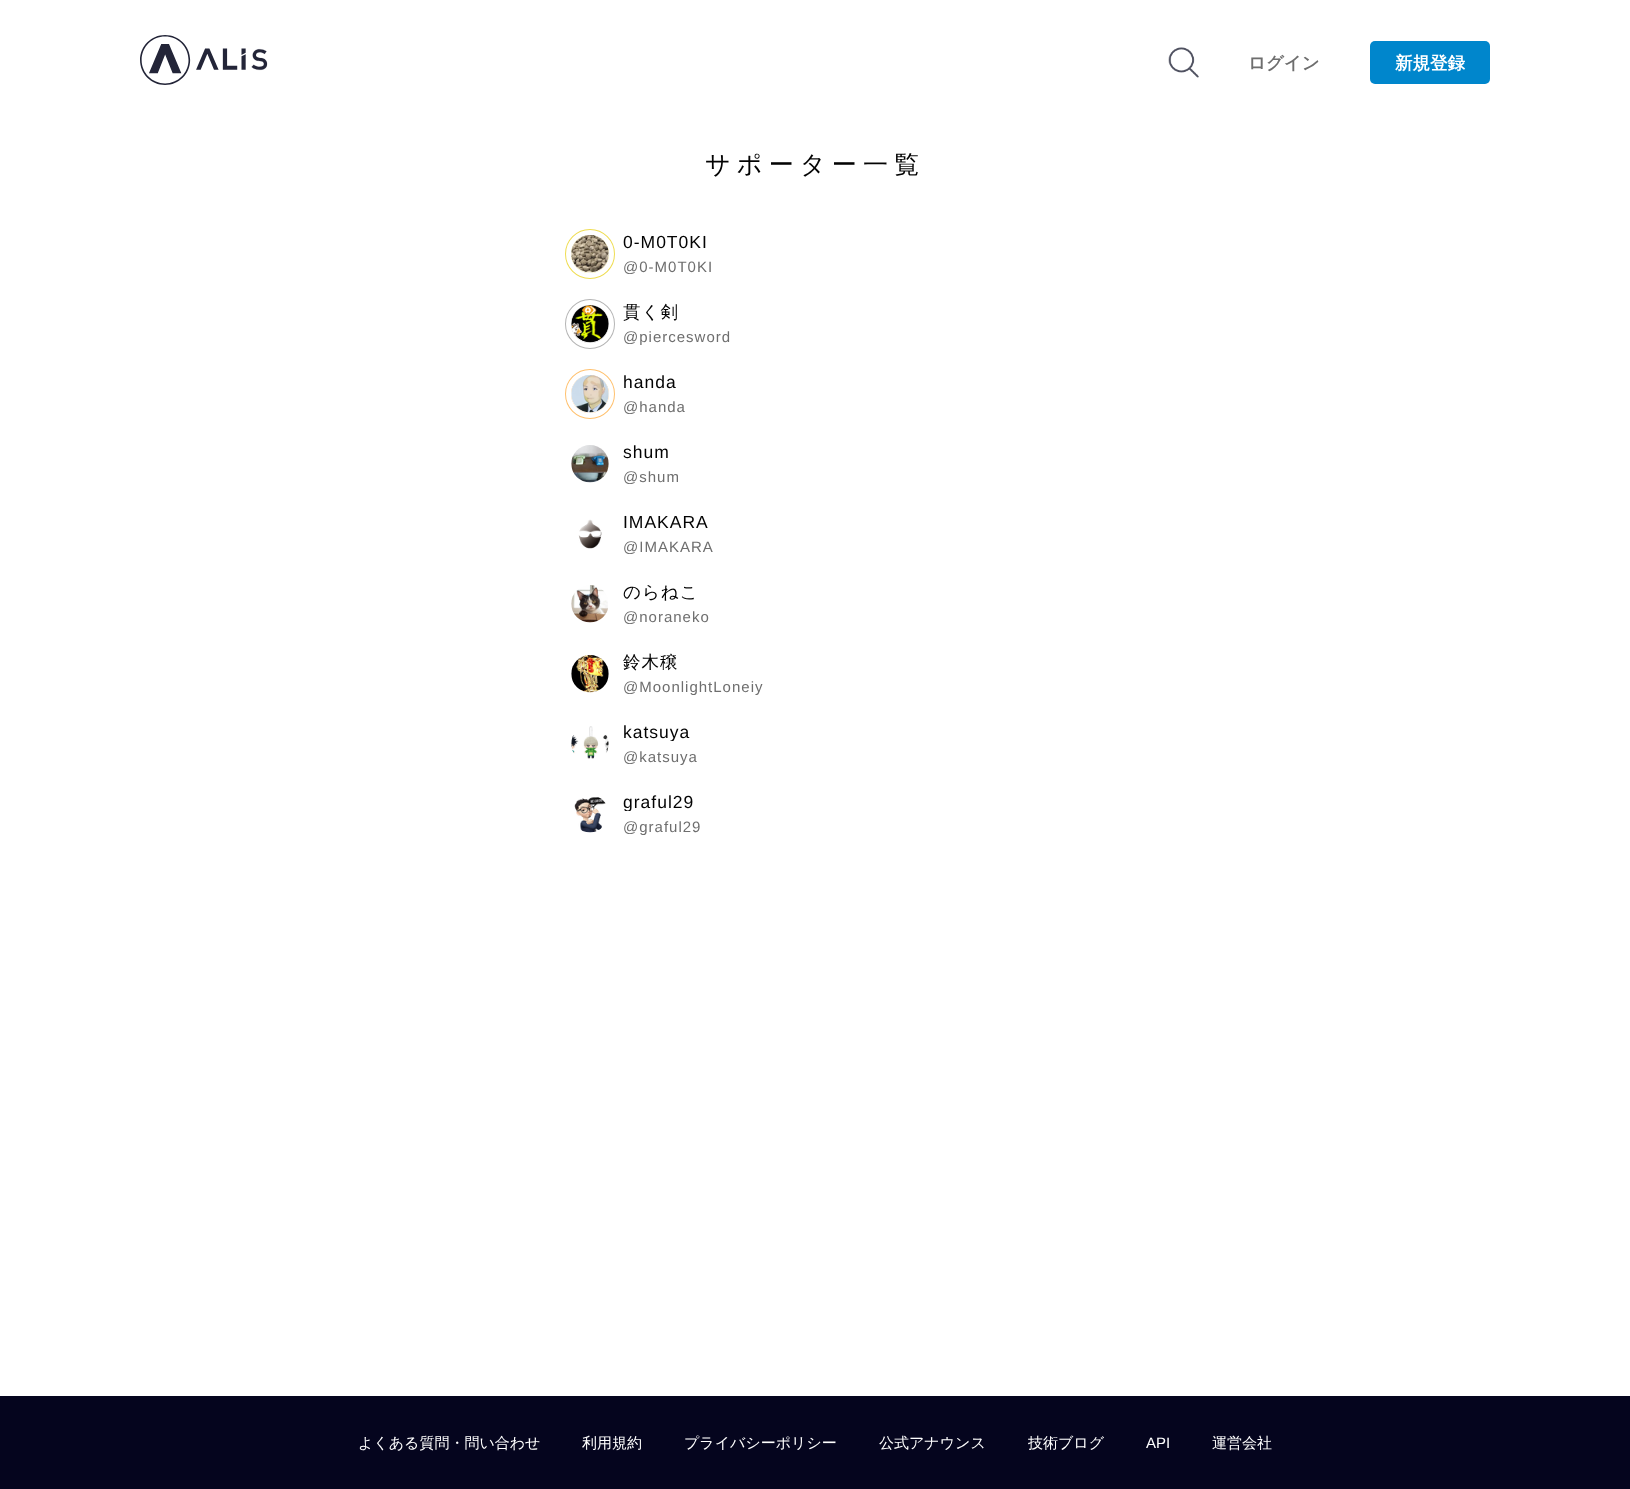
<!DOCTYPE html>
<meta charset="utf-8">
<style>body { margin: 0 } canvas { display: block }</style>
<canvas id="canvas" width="1630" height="1489"></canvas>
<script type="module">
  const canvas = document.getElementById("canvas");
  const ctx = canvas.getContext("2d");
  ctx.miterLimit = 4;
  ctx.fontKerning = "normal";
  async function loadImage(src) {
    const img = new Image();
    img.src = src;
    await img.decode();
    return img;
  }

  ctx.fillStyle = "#ffffff";
  ctx.fillRect(0, 0, 1630, 1489);
  ctx.drawImage(await loadImage("img1.png"), 140, 35, 128, 50);
  ctx.drawImage(await loadImage("img2.png"), 1168, 47, 31, 31);
  ctx.font = "bold 17.5px WenQuanYi Zen Hei";
  ctx.fillStyle = "#6e6e6e";
  ctx.fillText("ログイン", 1248, 69);
  ctx.fillStyle = "#0086cc";
  ctx.beginPath();
  ctx.roundRect(1370, 41, 120, 43, 5);
  ctx.fill();
  ctx.fillStyle = "#ffffff";
  ctx.fillText("新規登録", 1395, 69);
  ctx.letterSpacing = "6.25px";
  ctx.font = "500 25px WenQuanYi Zen Hei";
  ctx.fillStyle = "#030303";
  ctx.fillText("サポーター一覧", 705, 173);
  ctx.beginPath();
  ctx.arc(590, 254, 22, 0, Math.PI * 2);
  ctx.strokeStyle = "#efdd52";
  ctx.lineWidth = 6;
  ctx.stroke();
  ctx.beginPath();
  ctx.arc(590, 254, 21.5, 0, Math.PI * 2);
  ctx.strokeStyle = "#ffffff";
  ctx.lineWidth = 5;
  ctx.stroke();
  ctx.drawImage(await loadImage("img3.png"), 571, 235, 38, 38);
  ctx.letterSpacing = "1px";
  ctx.font = "17.5px Liberation Sans";
  ctx.fillText("0-M0T0KI", 623, 248);
  ctx.font = "15px Liberation Sans";
  ctx.fillStyle = "#6e6e6e";
  ctx.fillText("@0-M0T0KI", 623, 272);
  ctx.beginPath();
  ctx.arc(590, 324, 22, 0, Math.PI * 2);
  ctx.strokeStyle = "#b5b5b5";
  ctx.lineWidth = 6;
  ctx.stroke();
  ctx.beginPath();
  ctx.arc(590, 324, 21.5, 0, Math.PI * 2);
  ctx.strokeStyle = "#ffffff";
  ctx.lineWidth = 5;
  ctx.stroke();
  ctx.font = "500 17.5px WenQuanYi Zen Hei";
  ctx.fillStyle = "#030303";
  ctx.fillText("貫く剣", 623, 318);
  ctx.drawImage(await loadImage("img4.png"), 571, 305, 38, 38);
  ctx.font = "15px Liberation Sans";
  ctx.fillStyle = "#6e6e6e";
  ctx.fillText("@piercesword", 623, 342);
  ctx.beginPath();
  ctx.arc(590, 394, 22, 0, Math.PI * 2);
  ctx.strokeStyle = "#ffc16e";
  ctx.lineWidth = 6;
  ctx.stroke();
  ctx.beginPath();
  ctx.arc(590, 394, 21.5, 0, Math.PI * 2);
  ctx.strokeStyle = "#ffffff";
  ctx.lineWidth = 5;
  ctx.stroke();
  ctx.drawImage(await loadImage("img5.png"), 571, 375, 38, 38);
  ctx.font = "17.5px Liberation Sans";
  ctx.fillStyle = "#030303";
  ctx.fillText("handa", 623, 388);
  ctx.font = "15px Liberation Sans";
  ctx.fillStyle = "#6e6e6e";
  ctx.fillText("@handa", 623, 412);
  ctx.drawImage(await loadImage("img6.png"), 571, 445, 38, 38);
  ctx.font = "17.5px Liberation Sans";
  ctx.fillStyle = "#030303";
  ctx.fillText("shum", 623, 458);
  ctx.font = "15px Liberation Sans";
  ctx.fillStyle = "#6e6e6e";
  ctx.fillText("@shum", 623, 482);
  ctx.drawImage(await loadImage("img7.png"), 578, 519, 24, 30);
  ctx.font = "17.5px Liberation Sans";
  ctx.fillStyle = "#030303";
  ctx.fillText("IMAKARA", 623, 528);
  ctx.font = "15px Liberation Sans";
  ctx.fillStyle = "#6e6e6e";
  ctx.fillText("@IMAKARA", 623, 552);
  ctx.drawImage(await loadImage("img8.png"), 571, 585, 37, 38);
  ctx.font = "500 17.5px WenQuanYi Zen Hei";
  ctx.fillStyle = "#030303";
  ctx.fillText("のらねこ", 623, 598);
  ctx.font = "15px Liberation Sans";
  ctx.fillStyle = "#6e6e6e";
  ctx.fillText("@noraneko", 623, 622);
  ctx.drawImage(await loadImage("img9.png"), 571, 655, 38, 38);
  ctx.font = "500 17.5px WenQuanYi Zen Hei";
  ctx.fillStyle = "#030303";
  ctx.fillText("鈴木穣", 623, 668);
  ctx.font = "15px Liberation Sans";
  ctx.fillStyle = "#6e6e6e";
  ctx.fillText("@MoonlightLoneiy", 623, 692);
  ctx.drawImage(await loadImage("img10.png"), 571, 726, 38, 33);
  ctx.save();
  ctx.beginPath();
  ctx.rect(623, 721, 437, 20);
  ctx.clip();
  ctx.font = "17.5px Liberation Sans";
  ctx.fillStyle = "#030303";
  ctx.fillText("katsuya", 623, 738);
  ctx.restore();
  ctx.fillText("@katsuya", 623, 762);
  ctx.drawImage(await loadImage("img11.png"), 574, 797, 32, 36);
  ctx.save();
  ctx.beginPath();
  ctx.rect(623, 791, 437, 20);
  ctx.clip();
  ctx.font = "17.5px Liberation Sans";
  ctx.fillStyle = "#030303";
  ctx.fillText("graful29", 623, 808);
  ctx.restore();
  ctx.fillText("@graful29", 623, 832);
  ctx.fillStyle = "#05051e";
  ctx.fillRect(0, 1396, 1630, 93);
  ctx.letterSpacing = "0px";
  ctx.font = "500 15px WenQuanYi Zen Hei";
  ctx.fillStyle = "#ffffff";
  ctx.fillText("よくある質問・問い合わせ", 358, 1448);
  ctx.fillText("利用規約", 582, 1448);
  ctx.fillText("プライバシーポリシー", 684, 1448);
  ctx.fillText("公式アナウンス", 879, 1448);
  ctx.fillText("技術ブログ", 1028, 1448);
  ctx.font = "15px Liberation Sans";
  ctx.fillText("API", 1146, 1448);
  ctx.font = "500 15px WenQuanYi Zen Hei";
  ctx.fillText("運営会社", 1212, 1448);
</script>
